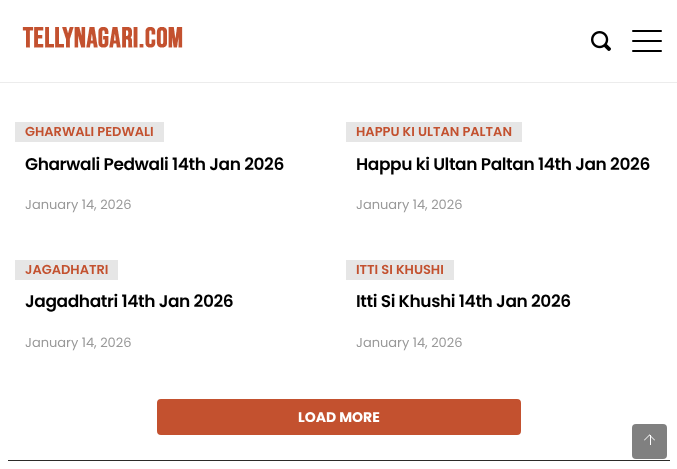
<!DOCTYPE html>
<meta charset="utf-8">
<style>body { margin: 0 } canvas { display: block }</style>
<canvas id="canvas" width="677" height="469"></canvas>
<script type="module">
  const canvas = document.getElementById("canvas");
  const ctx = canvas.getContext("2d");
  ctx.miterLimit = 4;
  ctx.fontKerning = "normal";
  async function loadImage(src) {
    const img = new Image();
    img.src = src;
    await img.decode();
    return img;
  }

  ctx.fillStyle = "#ffffff";
  ctx.fillRect(0, 0, 677, 469);
  ctx.fillStyle = "#ececec";
  ctx.fillRect(0, 82, 677, 1);
  ctx.drawImage(await loadImage("img1.png"), 22, 27, 161, 21);
  ctx.drawImage(await loadImage("img2.png"), 591, 31, 20, 20);
  ctx.fillStyle = "#000000";
  ctx.beginPath();
  ctx.roundRect(632, 30, 30, 2, 1);
  ctx.fill();
  ctx.beginPath();
  ctx.roundRect(632, 40, 30, 2, 1);
  ctx.fill();
  ctx.beginPath();
  ctx.roundRect(632, 50, 30, 2, 1);
  ctx.fill();
  ctx.fillStyle = "#e6e6e6";
  ctx.fillRect(15, 122, 149, 20);
  ctx.font = "600 13px Poppins";
  ctx.fillStyle = "#c3512f";
  ctx.fillText("GHARWALI PEDWALI", 25, 136);
  ctx.letterSpacing = "-0.4px";
  ctx.font = "600 17px Poppins";
  ctx.fillStyle = "#000000";
  ctx.fillText("Gharwali Pedwali 14th Jan 2026", 25, 170);
  ctx.letterSpacing = "0px";
  ctx.font = "13px Poppins";
  ctx.fillStyle = "#999999";
  ctx.fillText("January 14, 2026", 25, 209);
  ctx.fillStyle = "#e6e6e6";
  ctx.fillRect(346, 122, 176, 20);
  ctx.font = "600 13px Poppins";
  ctx.fillStyle = "#c3512f";
  ctx.fillText("HAPPU KI ULTAN PALTAN", 356, 136);
  ctx.letterSpacing = "-0.4px";
  ctx.font = "600 17px Poppins";
  ctx.fillStyle = "#000000";
  ctx.fillText("Happu ki Ultan Paltan 14th Jan 2026", 356, 170);
  ctx.letterSpacing = "0px";
  ctx.font = "13px Poppins";
  ctx.fillStyle = "#999999";
  ctx.fillText("January 14, 2026", 356, 209);
  ctx.fillStyle = "#e6e6e6";
  ctx.fillRect(15, 260, 103, 20);
  ctx.font = "600 13px Poppins";
  ctx.fillStyle = "#c3512f";
  ctx.fillText("JAGADHATRI", 25, 274);
  ctx.letterSpacing = "-0.4px";
  ctx.font = "600 17px Poppins";
  ctx.fillStyle = "#000000";
  ctx.fillText("Jagadhatri 14th Jan 2026", 25, 307);
  ctx.letterSpacing = "0px";
  ctx.font = "13px Poppins";
  ctx.fillStyle = "#999999";
  ctx.fillText("January 14, 2026", 25, 347);
  ctx.fillStyle = "#e6e6e6";
  ctx.fillRect(346, 260, 108, 20);
  ctx.font = "600 13px Poppins";
  ctx.fillStyle = "#c3512f";
  ctx.fillText("ITTI SI KHUSHI", 356, 274);
  ctx.letterSpacing = "-0.4px";
  ctx.font = "600 17px Poppins";
  ctx.fillStyle = "#000000";
  ctx.fillText("Itti Si Khushi 14th Jan 2026", 356, 307);
  ctx.letterSpacing = "0px";
  ctx.font = "13px Poppins";
  ctx.fillStyle = "#999999";
  ctx.fillText("January 14, 2026", 356, 347);
  ctx.fillStyle = "#c3512f";
  ctx.beginPath();
  ctx.roundRect(158, 400, 362, 34, 3);
  ctx.fill();
  ctx.strokeStyle = "#c3512f";
  ctx.lineWidth = 2;
  ctx.stroke();
  ctx.font = "bold 14px Poppins";
  ctx.fillStyle = "#ffffff";
  ctx.fillText("LOAD MORE", 298, 422);
  ctx.fillStyle = "#2c2b29";
  ctx.fillRect(8, 460, 662, 1);
  ctx.fillStyle = "#808080";
  ctx.beginPath();
  ctx.roundRect(632, 424, 35, 35, 4);
  ctx.fill();
  ctx.fillStyle = "#ffffff";
  ctx.beginPath();
  ctx.moveTo(650, 435);
  ctx.lineTo(644.5, 440.5);
  ctx.lineTo(644, 440);
  ctx.lineTo(649.5, 434.5);
  ctx.closePath();
  ctx.fill();
  ctx.beginPath();
  ctx.moveTo(655, 440);
  ctx.lineTo(654.5, 440.5);
  ctx.lineTo(649, 435);
  ctx.lineTo(649.5, 434.5);
  ctx.closePath();
  ctx.fill();
  ctx.fillRect(650, 435, 1, 10);
</script>
